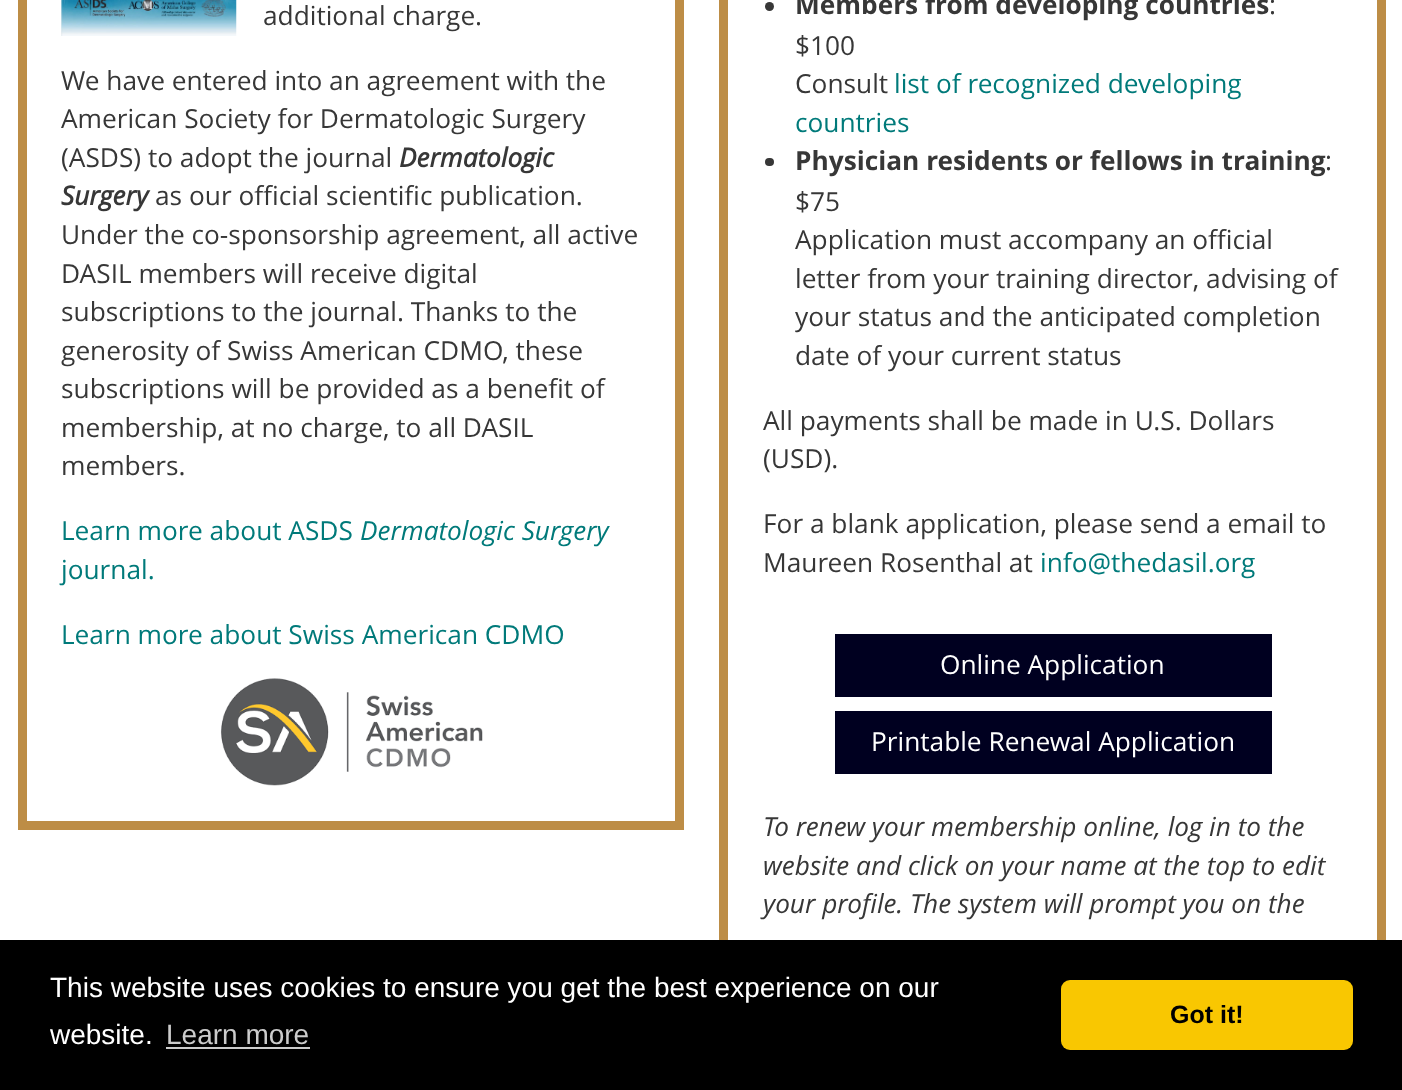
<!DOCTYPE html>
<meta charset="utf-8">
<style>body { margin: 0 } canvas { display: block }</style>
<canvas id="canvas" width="1402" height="1090"></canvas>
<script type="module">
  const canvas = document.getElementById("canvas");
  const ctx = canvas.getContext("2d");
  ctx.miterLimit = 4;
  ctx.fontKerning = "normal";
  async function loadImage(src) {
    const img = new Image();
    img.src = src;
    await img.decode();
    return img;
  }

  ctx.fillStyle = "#ffffff";
  ctx.fillRect(0, 0, 1402, 1090);
  ctx.strokeStyle = "#bd8d46";
  ctx.lineWidth = 9;
  ctx.strokeRect(22.5, -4.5, 657, 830);
  ctx.drawImage(await loadImage("img1.png"), 61, 0, 176, 36);
  ctx.font = "26.25px Open Sans";
  ctx.fillStyle = "#373737";
  ctx.fillText("additional charge.", 263, 25);
  ctx.fillText("We have entered into an agreement with the", 61, 90);
  ctx.fillText("American Society for Dermatologic Surgery", 61, 128);
  ctx.fillText("(ASDS) to adopt the journal", 61, 167);
  ctx.font = "italic bold 26.25px Open Sans";
  ctx.fillText("Dermatologic", 399, 167);
  ctx.fillText("Surgery", 61, 205);
  ctx.font = "26.25px Open Sans";
  ctx.fillText("as our official scientific publication.", 155, 205);
  ctx.fillText("Under the co-sponsorship agreement, all active", 61, 244);
  ctx.fillText("DASIL members will receive digital", 61, 283);
  ctx.fillText("subscriptions to the journal. Thanks to the", 61, 321);
  ctx.fillText("generosity of Swiss American CDMO, these", 61, 360);
  ctx.fillText("subscriptions will be provided as a benefit of", 61, 398);
  ctx.fillText("membership, at no charge, to all DASIL", 61, 437);
  ctx.fillText("members.", 61, 475);
  ctx.fillStyle = "#007a7a";
  ctx.fillText("Learn more about ASDS", 61, 540);
  ctx.font = "italic 26.25px Open Sans";
  ctx.fillText("Dermatologic Surgery", 360, 540);
  ctx.font = "26.25px Open Sans";
  ctx.fillText("journal.", 61, 579);
  ctx.fillText("Learn more about Swiss American CDMO", 61, 644);
  ctx.drawImage(await loadImage("img2.png"), 220, 678, 263, 108);
  ctx.strokeRect(723.5, -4.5, 658, 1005);
  ctx.fillStyle = "#373737";
  ctx.beginPath();
  ctx.arc(769.5, 6.5, 4.5, 0, Math.PI * 2);
  ctx.fill();
  ctx.font = "bold 26.25px Open Sans";
  ctx.fillText("Members from developing countries", 795, 14);
  ctx.font = "26.25px Open Sans";
  ctx.fillText(":", 1269, 14);
  ctx.fillText("$100", 795, 55);
  ctx.fillText("Consult", 795, 93);
  ctx.fillStyle = "#007a7a";
  ctx.fillText("list of recognized developing", 894, 93);
  ctx.fillText("countries", 795, 132);
  ctx.fillStyle = "#373737";
  ctx.beginPath();
  ctx.roundRect(765, 158, 9, 8, 4);
  ctx.fill();
  ctx.font = "bold 26.25px Open Sans";
  ctx.fillText("Physician residents or fellows in training", 795, 170);
  ctx.font = "26.25px Open Sans";
  ctx.fillText(":", 1325, 170);
  ctx.fillText("$75", 795, 211);
  ctx.fillText("Application must accompany an official", 795, 249);
  ctx.fillText("letter from your training director, advising of", 795, 288);
  ctx.fillText("your status and the anticipated completion", 795, 326);
  ctx.fillText("date of your current status", 795, 365);
  ctx.fillText("All payments shall be made in U.S. Dollars", 763, 430);
  ctx.fillText("(USD).", 763, 468);
  ctx.fillText("For a blank application, please send a email to", 763, 533);
  ctx.fillText("Maureen Rosenthal at", 763, 572);
  ctx.fillStyle = "#007a7a";
  ctx.fillText("info@thedasil.org", 1040, 572);
  ctx.fillStyle = "#000020";
  ctx.fillRect(835, 634, 437, 63);
  ctx.fillStyle = "#ffffff";
  ctx.fillText("Online Application", 940, 674);
  ctx.fillStyle = "#000020";
  ctx.fillRect(835, 711, 437, 63);
  ctx.fillStyle = "#ffffff";
  ctx.fillText("Printable Renewal Application", 871, 751);
  ctx.font = "italic 26.25px Open Sans";
  ctx.fillStyle = "#373737";
  ctx.fillText("To renew your membership online, log in to the", 763, 836);
  ctx.fillText("website and click on your name at the top to edit", 763, 875);
  ctx.fillText("your profile. The system will prompt you on the", 763, 913);
  ctx.fillStyle = "#000000";
  ctx.fillRect(0, 940, 1402, 150);
  ctx.font = "28px Liberation Sans";
  ctx.fillStyle = "#ffffff";
  ctx.fillText("This website uses cookies to ensure you get the best experience on our", 50, 997);
  ctx.fillText("website.", 50, 1044);
  ctx.fillStyle = "#cccccc";
  ctx.fillText("Learn more", 166, 1044);
  ctx.fillRect(166, 1047, 144, 2);
  ctx.fillStyle = "#f9c701";
  ctx.beginPath();
  ctx.roundRect(1061, 980, 292, 70, 9);
  ctx.fill();
  ctx.font = "bold 25px Liberation Sans";
  ctx.fillStyle = "#000000";
  ctx.fillText("Got it!", 1170, 1023);
</script>
